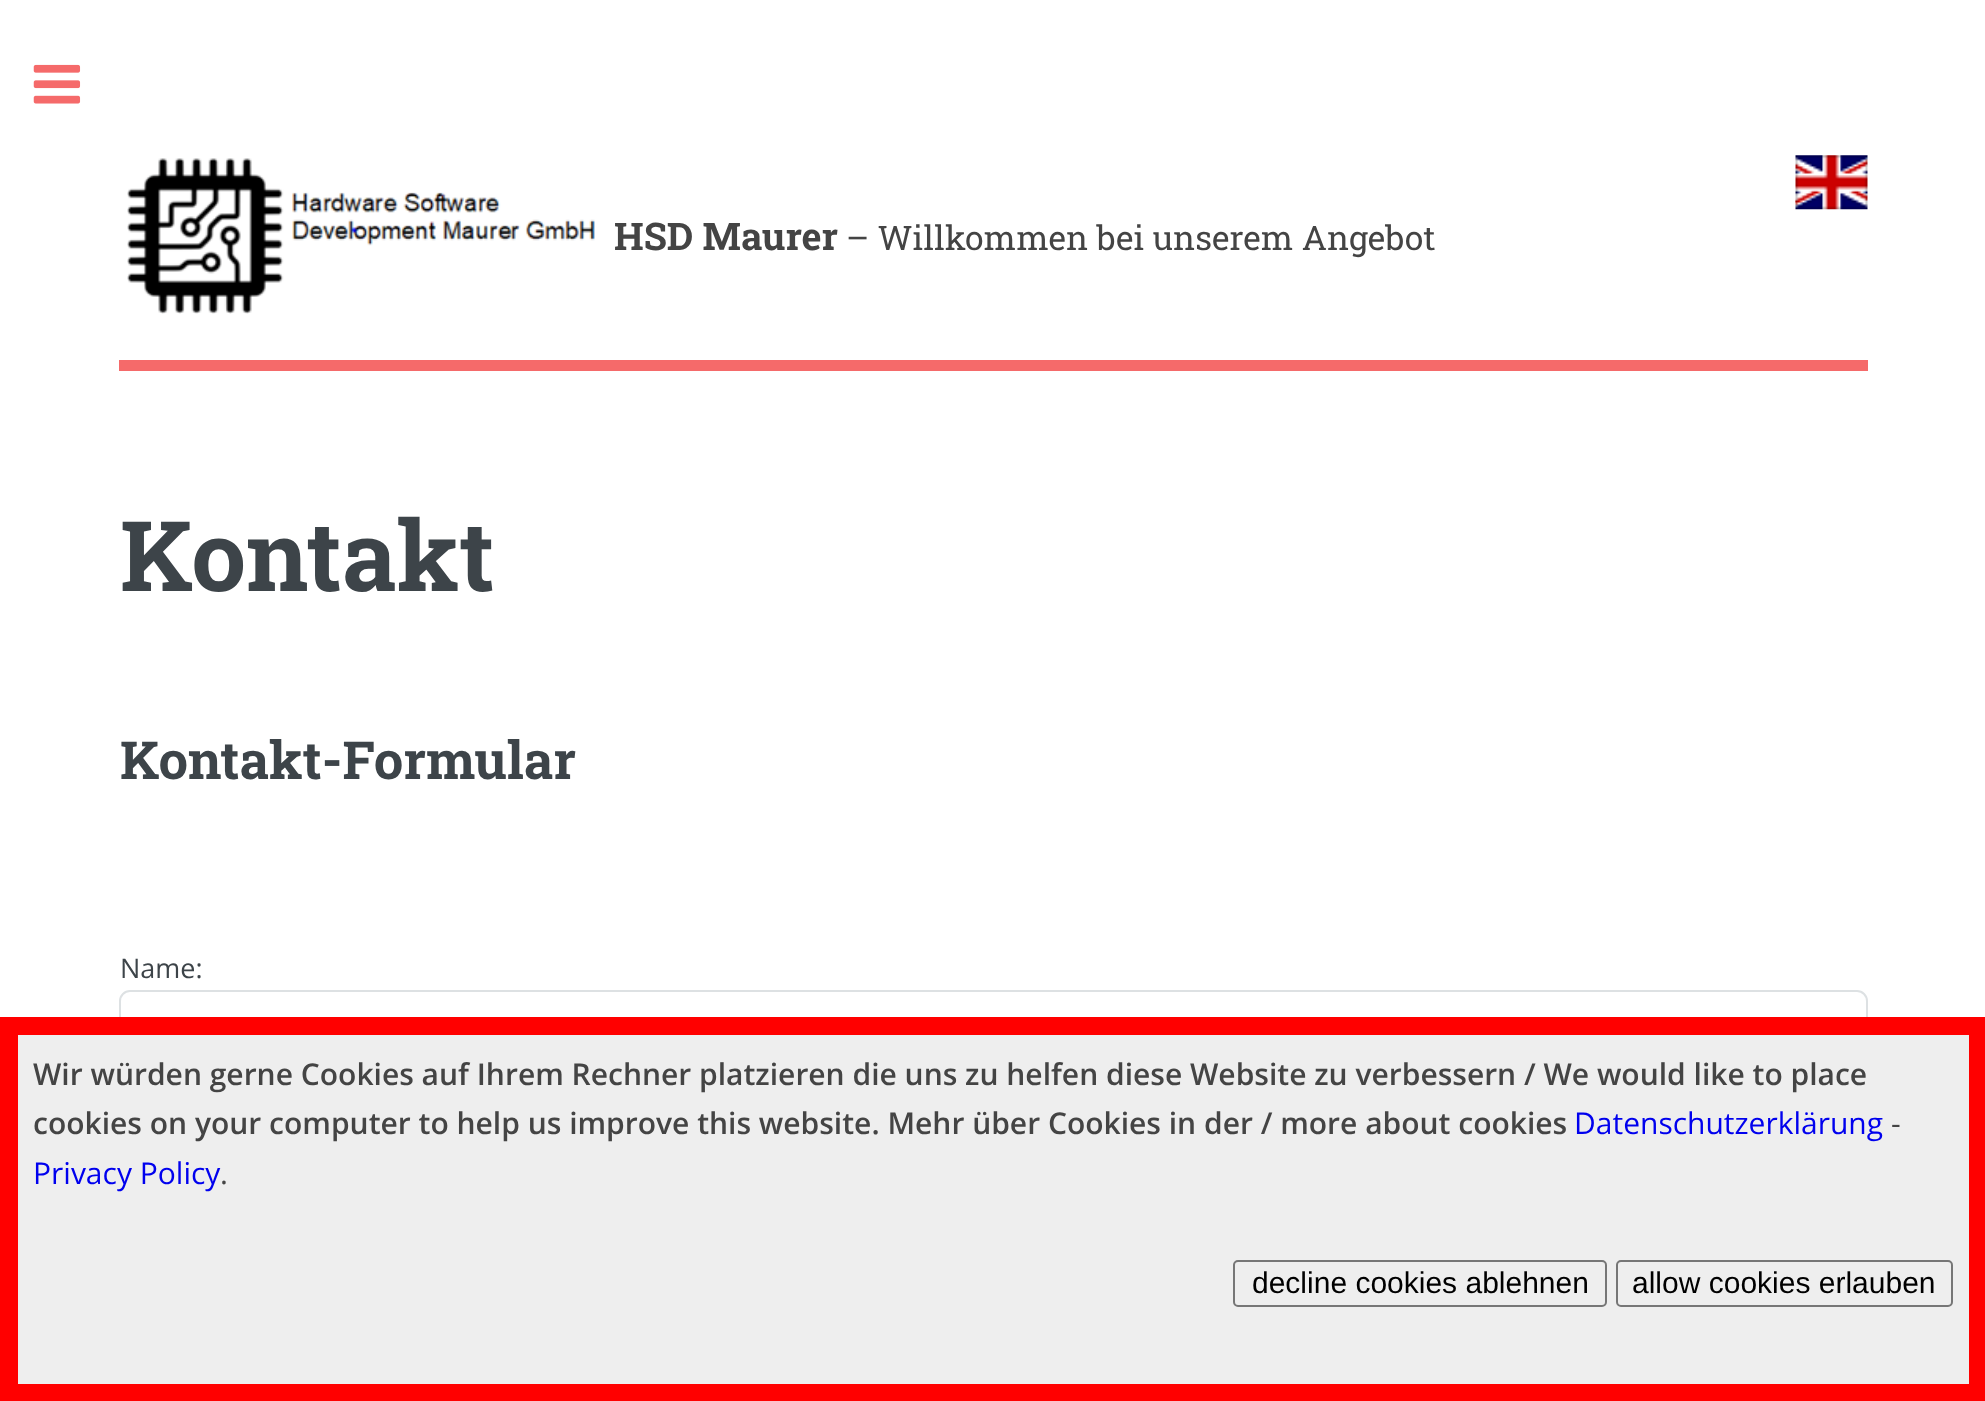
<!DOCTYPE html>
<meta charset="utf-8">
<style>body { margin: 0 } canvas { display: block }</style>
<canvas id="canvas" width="1985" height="1401"></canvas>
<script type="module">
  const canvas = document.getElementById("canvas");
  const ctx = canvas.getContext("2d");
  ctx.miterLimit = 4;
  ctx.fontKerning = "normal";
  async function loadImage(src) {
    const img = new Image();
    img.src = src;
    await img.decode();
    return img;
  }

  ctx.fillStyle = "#ffffff";
  ctx.fillRect(0, 0, 1985, 1401);
  ctx.drawImage(await loadImage("img1.png"), 33, 64, 48, 40);
  ctx.fillStyle = "#f56a6a";
  ctx.fillRect(119, 360, 1749, 11);
  ctx.drawImage(await loadImage("img2.png"), 127, 158, 468, 156);
  ctx.font = "bold 38px Roboto Slab";
  ctx.fillStyle = "#444444";
  ctx.fillText("HSD Maurer", 614, 250);
  ctx.font = "33.75px Roboto Slab";
  ctx.fillText("– Willkommen bei unserem Angebot", 846, 250);
  ctx.beginPath();
  ctx.moveTo(1795.5, 201.5);
  ctx.lineTo(1867.5, 201.5);
  ctx.strokeStyle = "#f56a6a";
  ctx.lineWidth = 2.2;
  ctx.setLineDash([2.25, 2.25]);
  ctx.stroke();
  ctx.drawImage(await loadImage("img3.png"), 1795, 155, 73, 55);
  ctx.font = "bold 97.5px Roboto Slab";
  ctx.fillStyle = "#3d4449";
  ctx.fillText("Kontakt", 120, 591);
  ctx.font = "bold 52.5px Roboto Slab";
  ctx.fillText("Kontakt-Formular", 120, 779);
  ctx.font = "27px Open Sans";
  ctx.fillText("Name:", 120, 978);
  ctx.beginPath();
  ctx.roundRect(120, 991, 1747, 81, 10);
  ctx.strokeStyle = "#dde1e3";
  ctx.lineWidth = 2;
  ctx.setLineDash([]);
  ctx.stroke();
  ctx.fillStyle = "#eeeeee";
  ctx.beginPath();
  ctx.rect(9, 1026, 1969, 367);
  ctx.fill();
  ctx.strokeStyle = "#ff0000";
  ctx.lineWidth = 18;
  ctx.stroke();
  ctx.font = "600 30px Open Sans";
  ctx.fillStyle = "#444444";
  ctx.fillText("Wir würden gerne Cookies auf Ihrem Rechner platzieren die uns zu helfen diese Website zu verbessern / We would like to place", 33, 1085);
  ctx.fillText("cookies on your computer to help us improve this website. Mehr über Cookies in der / more about cookies", 33, 1134);
  ctx.font = "30px Open Sans";
  ctx.fillStyle = "#0000ee";
  ctx.fillText("Datenschutzerklärung", 1574, 1134);
  ctx.fillStyle = "#444444";
  ctx.fillText("-", 1891, 1134);
  ctx.fillStyle = "#0000ee";
  ctx.fillText("Privacy Policy", 33, 1184);
  ctx.fillStyle = "#444444";
  ctx.fillText(".", 220, 1184);
  ctx.beginPath();
  ctx.roundRect(1234, 1261, 372, 45, 4);
  ctx.strokeStyle = "#767676";
  ctx.lineWidth = 2;
  ctx.stroke();
  ctx.font = "30px Liberation Sans";
  ctx.fillStyle = "#000000";
  ctx.fillText("decline cookies ablehnen", 1252, 1293);
  ctx.beginPath();
  ctx.roundRect(1617, 1261, 335, 45, 4);
  ctx.stroke();
  ctx.fillText("allow cookies erlauben", 1632, 1293);
</script>
